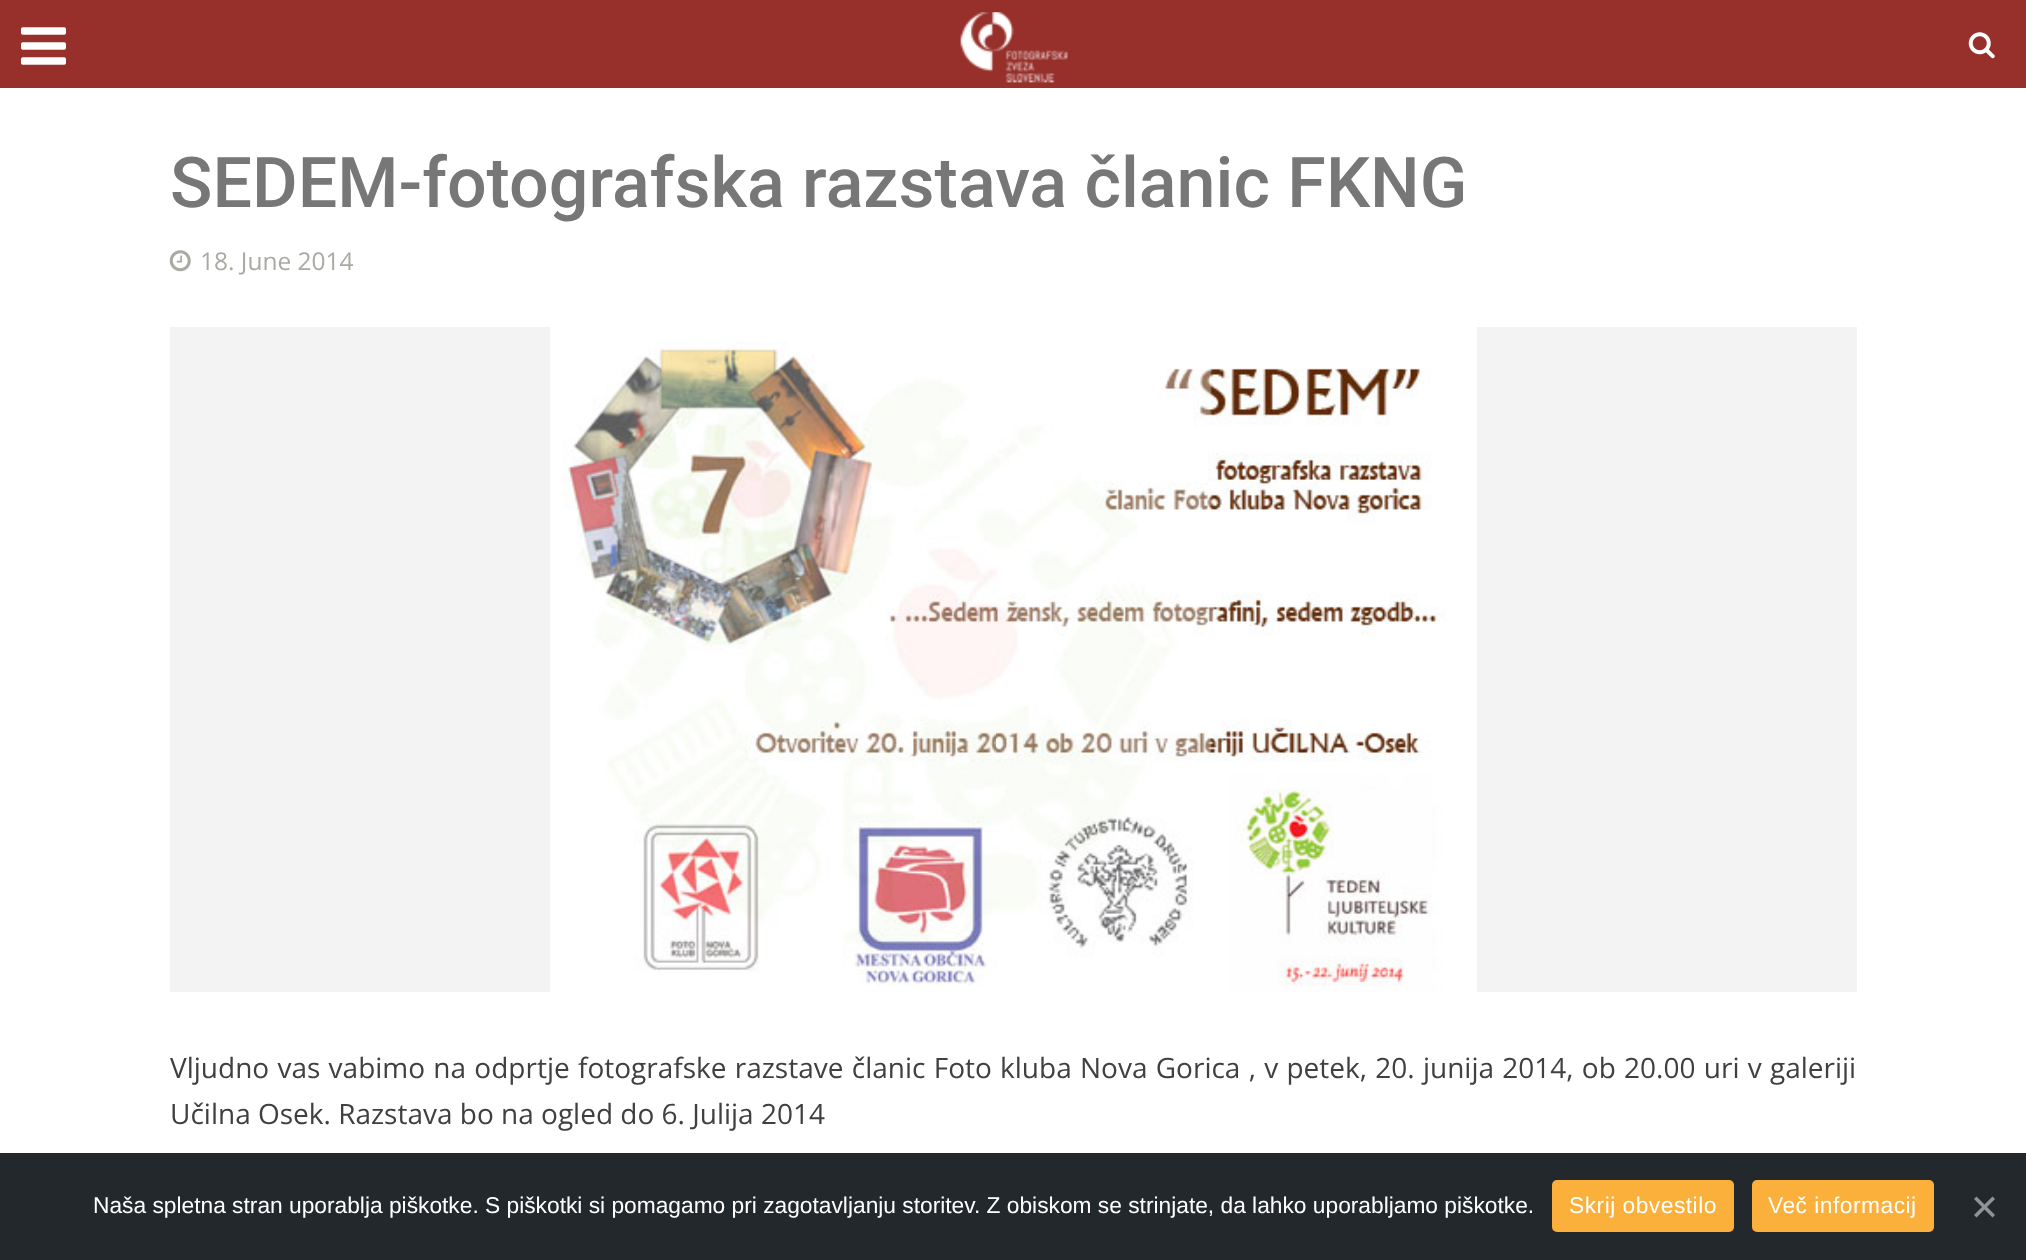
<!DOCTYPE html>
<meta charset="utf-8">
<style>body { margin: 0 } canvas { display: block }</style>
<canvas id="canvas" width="2026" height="1260"></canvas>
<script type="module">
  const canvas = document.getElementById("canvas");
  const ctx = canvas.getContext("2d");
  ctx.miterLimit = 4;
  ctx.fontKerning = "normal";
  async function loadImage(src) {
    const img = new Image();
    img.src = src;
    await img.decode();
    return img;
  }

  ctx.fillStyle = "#ffffff";
  ctx.fillRect(0, 0, 2026, 1260);
  ctx.fillStyle = "#97302b";
  ctx.fillRect(0, 0, 2026, 88);
  ctx.drawImage(await loadImage("img1.png"), 21, 27, 45, 38);
  ctx.drawImage(await loadImage("img2.png"), 960, 12, 108, 71);
  ctx.drawImage(await loadImage("img3.png"), 1968, 32, 27, 27);
  ctx.font = "500 70px Roboto";
  ctx.fillStyle = "#777777";
  ctx.fillText("SEDEM-fotografska razstava članic FKNG", 170, 207);
  ctx.drawImage(await loadImage("img4.png"), 169, 250, 22, 22);
  ctx.font = "24.5px Open Sans";
  ctx.fillStyle = "#a8aba2";
  ctx.fillText("18. June 2014", 200, 270);
  ctx.fillStyle = "#f3f3f3";
  ctx.fillRect(170, 327, 1687, 665);
  ctx.drawImage(await loadImage("img5.png"), 550, 327, 927, 665);
  ctx.wordSpacing = "1px";
  ctx.font = "28px Open Sans";
  ctx.fillStyle = "#404040";
  ctx.fillText("Vljudno vas vabimo na odprtje fotografske razstave članic Foto kluba Nova Gorica , v petek, 20. junija 2014, ob 20.00 uri v galeriji", 170, 1078);
  ctx.wordSpacing = "0px";
  ctx.fillText("Učilna Osek. Razstava bo na ogled do 6. Julija 2014", 170, 1124);
  ctx.fillStyle = "#23282d";
  ctx.fillRect(0, 1153, 2026, 107);
  ctx.font = "22.75px Liberation Sans";
  ctx.fillStyle = "#ffffff";
  ctx.fillText("Naša spletna stran uporablja piškotke. S piškotki si pomagamo pri zagotavljanju storitev. Z obiskom se strinjate, da lahko uporabljamo piškotke.", 93, 1213);
  ctx.fillStyle = "#fbb03b";
  ctx.beginPath();
  ctx.roundRect(1552, 1180, 182, 52, 5);
  ctx.fill();
  ctx.letterSpacing = "0.5px";
  ctx.fillStyle = "#ffffff";
  ctx.fillText("Skrij obvestilo", 1569, 1213);
  ctx.fillStyle = "#fbb03b";
  ctx.beginPath();
  ctx.roundRect(1752, 1180, 182, 52, 5);
  ctx.fill();
  ctx.fillStyle = "#ffffff";
  ctx.fillText("Več informacij", 1768, 1213);
  ctx.fillStyle = "#919496";
  ctx.beginPath();
  ctx.moveTo(1992.5, 1196.5);
  ctx.lineTo(1995, 1199);
  ctx.lineTo(1976.5, 1217.5);
  ctx.lineTo(1974, 1215);
  ctx.closePath();
  ctx.fill();
  ctx.beginPath();
  ctx.moveTo(1974, 1199);
  ctx.lineTo(1976.5, 1196.5);
  ctx.lineTo(1995, 1215);
  ctx.lineTo(1992.5, 1217.5);
  ctx.closePath();
  ctx.fill();
</script>
